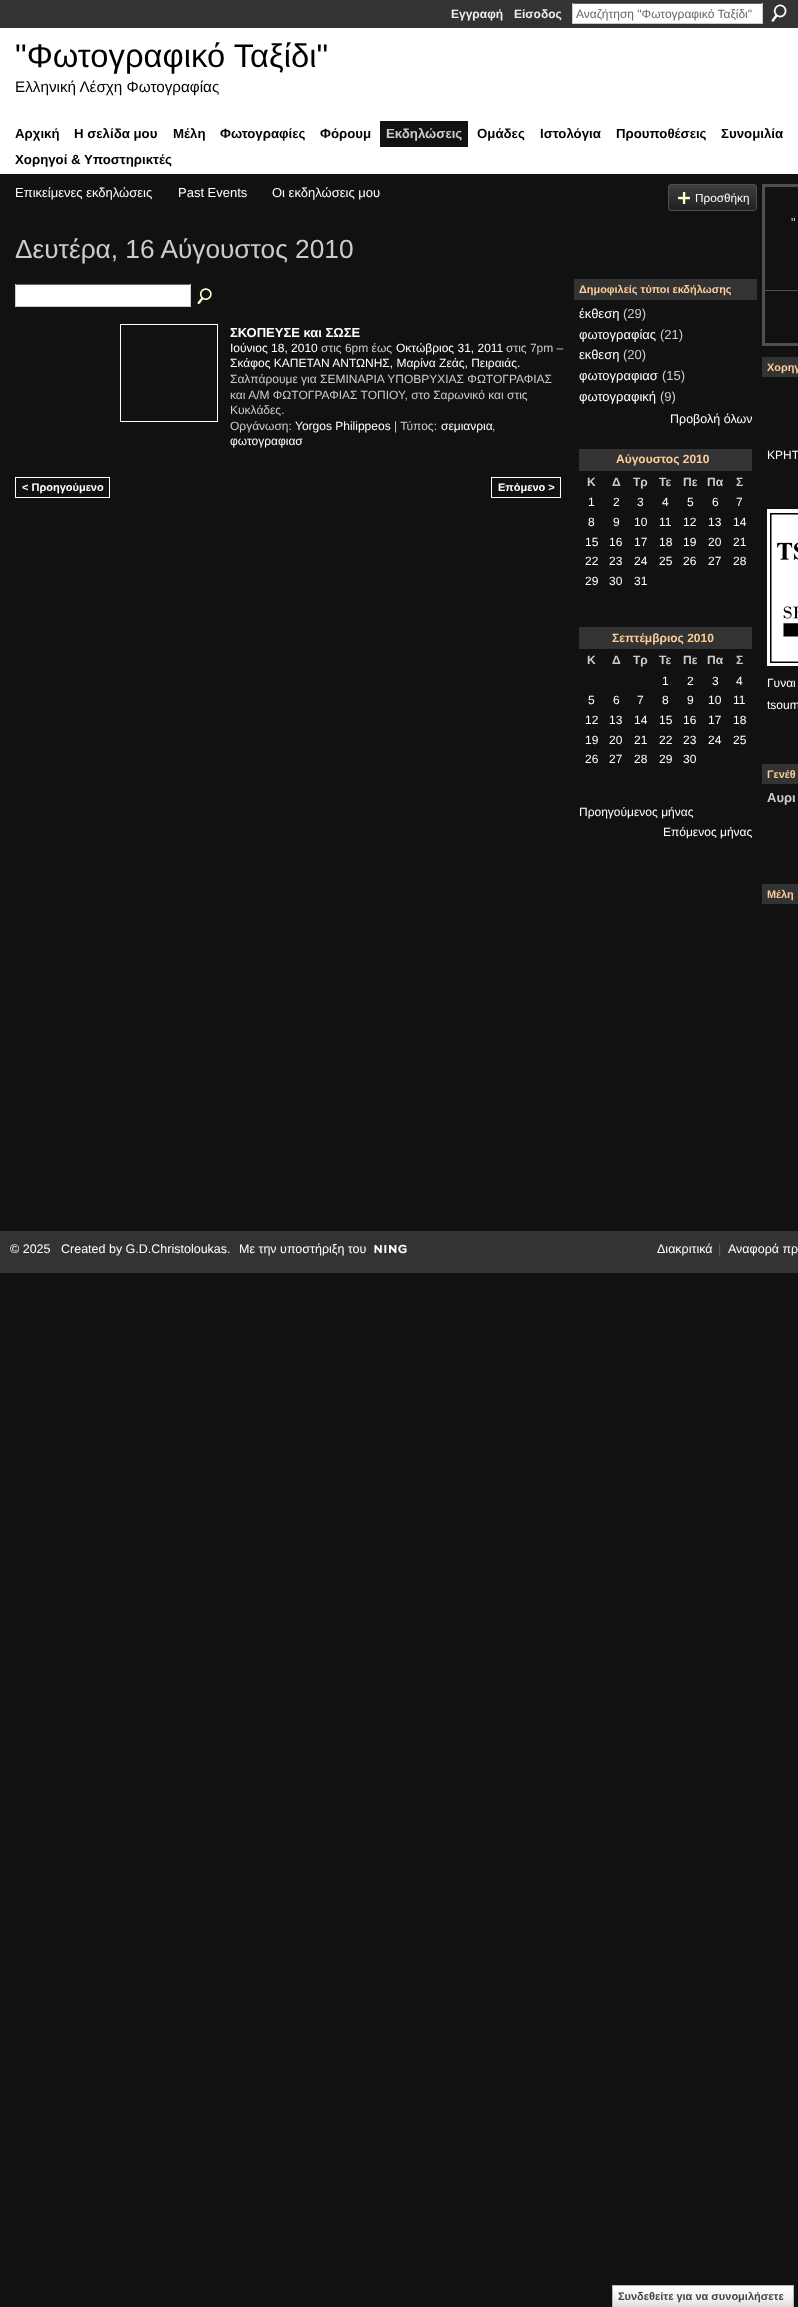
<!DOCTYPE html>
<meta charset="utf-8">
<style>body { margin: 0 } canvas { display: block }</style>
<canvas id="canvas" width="798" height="2307"></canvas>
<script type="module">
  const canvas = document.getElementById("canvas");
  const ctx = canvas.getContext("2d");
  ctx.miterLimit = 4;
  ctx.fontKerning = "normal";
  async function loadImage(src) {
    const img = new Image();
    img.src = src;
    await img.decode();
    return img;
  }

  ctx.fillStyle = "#111111";
  ctx.fillRect(0, 0, 798, 2307);
  ctx.fillStyle = "#333333";
  ctx.fillRect(0, 0, 798, 28);
  ctx.font = "bold 12px Liberation Sans";
  ctx.fillStyle = "#eeeeee";
  ctx.fillText("Εγγραφή", 451, 18);
  ctx.fillText("Είσοδος", 514, 18);
  ctx.fillStyle = "#ffffff";
  ctx.fillRect(573, 4, 189, 19);
  ctx.fillStyle = "#666666";
  ctx.fillRect(572, 3, 191, 1);
  ctx.fillStyle = "#cccccc";
  ctx.fillRect(762, 3, 1, 21);
  ctx.fillRect(572, 23, 191, 1);
  ctx.fillRect(572, 3, 1, 21);
  ctx.font = "12px Liberation Sans";
  ctx.fillStyle = "#666666";
  ctx.fillText("Αναζήτηση \"Φωτογραφικό Ταξίδι\"", 576, 18);
  ctx.drawImage(await loadImage("img1.png"), 771, 4, 16, 18);
  ctx.fillStyle = "#ffffff";
  ctx.fillRect(0, 28, 798, 146);
  ctx.font = "32.75px Liberation Sans";
  ctx.fillStyle = "#000000";
  ctx.fillText("\"Φωτογραφικό Ταξίδι\"", 15, 67);
  ctx.font = "15.25px Liberation Sans";
  ctx.fillText("Ελληνική Λέσχη Φωτογραφίας", 15, 92);
  ctx.font = "bold 13.25px Liberation Sans";
  ctx.fillText("Αρχική", 15, 138);
  ctx.fillText("Η σελίδα μου", 74, 138);
  ctx.fillText("Μέλη", 173, 138);
  ctx.fillText("Φωτογραφίες", 220, 138);
  ctx.fillText("Φόρουμ", 320, 138);
  ctx.fillStyle = "#111111";
  ctx.fillRect(380, 121, 88, 26);
  ctx.fillStyle = "#cccccc";
  ctx.fillText("Εκδηλώσεις", 386, 138);
  ctx.fillStyle = "#000000";
  ctx.fillText("Ομάδες", 477, 138);
  ctx.fillText("Ιστολόγια", 540, 138);
  ctx.fillText("Προυποθέσεις", 616, 138);
  ctx.fillText("Συνομιλία", 721, 138);
  ctx.fillText("Χορηγοί & Υποστηρικτές", 15, 164);
  ctx.font = "13px Liberation Sans";
  ctx.fillStyle = "#ffffff";
  ctx.fillText("Επικείμενες εκδηλώσεις", 15, 197);
  ctx.fillText("Past Events", 178, 197);
  ctx.fillText("Οι εκδηλώσεις μου", 272, 197);
  ctx.drawImage(await loadImage("img2.png"), 668, 185, 89, 26);
  ctx.beginPath();
  ctx.roundRect(668.5, 184.5, 88, 26, 2.5);
  ctx.strokeStyle = "#4f4f4f";
  ctx.stroke();
  ctx.drawImage(await loadImage("img3.png"), 678, 192, 12, 12);
  ctx.font = "11.75px Liberation Sans";
  ctx.fillText("Προσθήκη", 695, 202);
  ctx.font = "26.25px Liberation Sans";
  ctx.fillStyle = "#cccccc";
  ctx.fillText("Δευτέρα, 16 Αύγουστος 2010", 15, 258);
  ctx.fillStyle = "#ffffff";
  ctx.fillRect(16, 285, 174, 21);
  ctx.fillStyle = "#666666";
  ctx.fillRect(15, 284, 176, 1);
  ctx.fillStyle = "#cccccc";
  ctx.fillRect(190, 284, 1, 23);
  ctx.fillRect(15, 306, 176, 1);
  ctx.fillRect(15, 284, 1, 23);
  ctx.drawImage(await loadImage("img4.png"), 197, 288, 15, 16);
  ctx.strokeStyle = "#ffffff";
  ctx.strokeRect(120.5, 324.5, 97, 97);
  ctx.font = "bold 13px Liberation Sans";
  ctx.fillStyle = "#ffffff";
  ctx.fillText("ΣΚΟΠΕΥΣΕ και ΣΩΣΕ", 230, 337);
  ctx.font = "12px Liberation Sans";
  ctx.fillText("Ιούνιος 18, 2010", 230, 352);
  ctx.fillStyle = "#cccccc";
  ctx.fillText("στις 6pm έως", 321, 352);
  ctx.fillStyle = "#ffffff";
  ctx.fillText("Οκτώβριος 31, 2011", 396, 352);
  ctx.fillStyle = "#cccccc";
  ctx.fillText("στις 7pm –", 506, 352);
  ctx.fillStyle = "#ffffff";
  ctx.fillText("Σκάφος ΚΑΠΕΤΑΝ ΑΝΤΩΝΗΣ, Μαρίνα Ζεάς, Πειραιάς.", 230, 367);
  ctx.fillStyle = "#cccccc";
  ctx.fillText("Σαλπάρουμε για ΣΕΜΙΝΑΡΙΑ ΥΠΟΒΡΥΧΙΑΣ ΦΩΤΟΓΡΑΦΙΑΣ", 230, 383);
  ctx.fillText("και Α/Μ ΦΩΤΟΓΡΑΦΙΑΣ ΤΟΠΙΟΥ, στο Σαρωνικό και στις", 230, 399);
  ctx.fillText("Κυκλάδες.", 230, 414);
  ctx.fillText("Οργάνωση:", 230, 430);
  ctx.fillStyle = "#ffffff";
  ctx.fillText("Yorgos Philippeos", 295, 430);
  ctx.fillStyle = "#cccccc";
  ctx.fillText("| Τύπος:", 394, 430);
  ctx.fillStyle = "#ffffff";
  ctx.fillText("σεμιανρια", 441, 430);
  ctx.fillStyle = "#cccccc";
  ctx.fillText(",", 492, 430);
  ctx.fillStyle = "#ffffff";
  ctx.fillText("φωτογραφιασ", 230, 445);
  ctx.strokeRect(15.5, 477.5, 94, 20);
  ctx.font = "bold 11px Liberation Sans";
  ctx.fillText("< Προηγούμενο", 22, 491);
  ctx.strokeRect(491.5, 477.5, 69, 20);
  ctx.fillText("Επόμενο >", 498, 491);
  ctx.fillStyle = "#333333";
  ctx.fillRect(574, 279, 183, 21);
  ctx.font = "bold 10.9px Liberation Sans";
  ctx.fillStyle = "#ffcc99";
  ctx.fillText("Δημοφιλείς τύποι εκδήλωσης", 579, 293);
  ctx.font = "13px Liberation Sans";
  ctx.fillStyle = "#ffffff";
  ctx.fillText("έκθεση", 579, 318);
  ctx.fillStyle = "#cccccc";
  ctx.fillText("(29)", 623, 318);
  ctx.fillStyle = "#ffffff";
  ctx.fillText("φωτογραφίας", 579, 339);
  ctx.fillStyle = "#cccccc";
  ctx.fillText("(21)", 660, 339);
  ctx.fillStyle = "#ffffff";
  ctx.fillText("εκθεση", 579, 359);
  ctx.fillStyle = "#cccccc";
  ctx.fillText("(20)", 623, 359);
  ctx.fillStyle = "#ffffff";
  ctx.fillText("φωτογραφιασ", 579, 380);
  ctx.fillStyle = "#cccccc";
  ctx.fillText("(15)", 662, 380);
  ctx.fillStyle = "#ffffff";
  ctx.fillText("φωτογραφική", 579, 401);
  ctx.fillStyle = "#cccccc";
  ctx.fillText("(9)", 660, 401);
  ctx.font = "12.5px Liberation Sans";
  ctx.fillStyle = "#ffffff";
  ctx.fillText("Προβολή όλων", 670, 423);
  ctx.fillStyle = "#333333";
  ctx.fillRect(579, 449, 173, 22);
  ctx.font = "bold 12px Liberation Sans";
  ctx.fillStyle = "#ffcc99";
  ctx.fillText("Αύγουστος 2010", 616, 463);
  ctx.fillStyle = "#cccccc";
  ctx.fillText("Κ", 587, 486);
  ctx.fillText("Δ", 612, 486);
  ctx.fillText("Τρ", 633, 486);
  ctx.fillText("Τε", 659, 486);
  ctx.fillText("Πε", 683, 486);
  ctx.fillText("Πα", 707, 486);
  ctx.fillText("Σ", 736, 486);
  ctx.font = "12px Liberation Sans";
  ctx.fillStyle = "#ffffff";
  ctx.fillText("1", 588, 506);
  ctx.fillText("2", 613, 506);
  ctx.fillText("3", 637, 506);
  ctx.fillText("4", 662, 506);
  ctx.fillText("5", 687, 506);
  ctx.fillText("6", 712, 506);
  ctx.fillText("7", 736, 506);
  ctx.fillText("8", 588, 526);
  ctx.fillText("9", 613, 526);
  ctx.fillText("10", 634, 526);
  ctx.fillText("11", 659, 526);
  ctx.fillText("12", 683, 526);
  ctx.fillText("13", 708, 526);
  ctx.fillText("14", 733, 526);
  ctx.fillText("15", 585, 546);
  ctx.fillText("16", 609, 546);
  ctx.fillText("17", 634, 546);
  ctx.fillText("18", 659, 546);
  ctx.fillText("19", 683, 546);
  ctx.fillText("20", 708, 546);
  ctx.fillText("21", 733, 546);
  ctx.fillText("22", 585, 565);
  ctx.fillText("23", 609, 565);
  ctx.fillText("24", 634, 565);
  ctx.fillText("25", 659, 565);
  ctx.fillText("26", 683, 565);
  ctx.fillText("27", 708, 565);
  ctx.fillText("28", 733, 565);
  ctx.fillText("29", 585, 585);
  ctx.fillText("30", 609, 585);
  ctx.fillText("31", 634, 585);
  ctx.fillStyle = "#333333";
  ctx.fillRect(579, 627, 173, 22);
  ctx.font = "bold 12px Liberation Sans";
  ctx.fillStyle = "#ffcc99";
  ctx.fillText("Σεπτέμβριος 2010", 612, 642);
  ctx.fillStyle = "#cccccc";
  ctx.fillText("Κ", 587, 664);
  ctx.fillText("Δ", 612, 664);
  ctx.fillText("Τρ", 633, 664);
  ctx.fillText("Τε", 659, 664);
  ctx.fillText("Πε", 683, 664);
  ctx.fillText("Πα", 707, 664);
  ctx.fillText("Σ", 736, 664);
  ctx.font = "12px Liberation Sans";
  ctx.fillStyle = "#ffffff";
  ctx.fillText("1", 662, 685);
  ctx.fillText("2", 687, 685);
  ctx.fillText("3", 712, 685);
  ctx.fillText("4", 736, 685);
  ctx.fillText("5", 588, 704);
  ctx.fillText("6", 613, 704);
  ctx.fillText("7", 637, 704);
  ctx.fillText("8", 662, 704);
  ctx.fillText("9", 687, 704);
  ctx.fillText("10", 708, 704);
  ctx.fillText("11", 733, 704);
  ctx.fillText("12", 585, 724);
  ctx.fillText("13", 609, 724);
  ctx.fillText("14", 634, 724);
  ctx.fillText("15", 659, 724);
  ctx.fillText("16", 683, 724);
  ctx.fillText("17", 708, 724);
  ctx.fillText("18", 733, 724);
  ctx.fillText("19", 585, 744);
  ctx.fillText("20", 609, 744);
  ctx.fillText("21", 634, 744);
  ctx.fillText("22", 659, 744);
  ctx.fillText("23", 683, 744);
  ctx.fillText("24", 708, 744);
  ctx.fillText("25", 733, 744);
  ctx.fillText("26", 585, 763);
  ctx.fillText("27", 609, 763);
  ctx.fillText("28", 634, 763);
  ctx.fillText("29", 659, 763);
  ctx.fillText("30", 683, 763);
  ctx.fillText("Προηγούμενος μήνας", 579, 816);
  ctx.fillText("Επόμενος μήνας", 663, 836);
  ctx.strokeStyle = "#4f4f4f";
  ctx.lineWidth = 3;
  ctx.strokeRect(763.5, 185.5, 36, 159);
  ctx.font = "13px Liberation Sans";
  ctx.fillStyle = "#cccccc";
  ctx.fillText("\"", 791, 227);
  ctx.fillStyle = "#4f4f4f";
  ctx.fillRect(765, 290, 33, 1);
  ctx.fillStyle = "#333333";
  ctx.fillRect(762, 357, 36, 20);
  ctx.font = "bold 10.9px Liberation Sans";
  ctx.fillStyle = "#ffcc99";
  ctx.fillText("Χορηγ", 767, 371);
  ctx.font = "12px Liberation Sans";
  ctx.fillStyle = "#ffffff";
  ctx.fillText("ΚΡΗΤ", 767, 459);
  ctx.drawImage(await loadImage("img5.png"), 767, 509, 31, 157);
  ctx.fillText("Γυναι", 767, 687);
  ctx.fillText("tsoum", 767, 709);
  ctx.fillStyle = "#333333";
  ctx.fillRect(762, 764, 36, 20);
  ctx.font = "bold 10.9px Liberation Sans";
  ctx.fillStyle = "#ffcc99";
  ctx.fillText("Γενέθ", 767, 778);
  ctx.font = "bold 13px Liberation Sans";
  ctx.fillStyle = "#cccccc";
  ctx.fillText("Αυρι", 767, 802);
  ctx.fillStyle = "#333333";
  ctx.fillRect(762, 884, 36, 20);
  ctx.font = "bold 10.9px Liberation Sans";
  ctx.fillStyle = "#ffcc99";
  ctx.fillText("Μέλη", 767, 898);
  ctx.fillStyle = "#333333";
  ctx.fillRect(0, 1231, 798, 42);
  ctx.font = "12.5px Liberation Sans";
  ctx.fillStyle = "#ffffff";
  ctx.fillText("© 2025", 10, 1253);
  ctx.fillText("Created by G.D.Christoloukas.", 61, 1253);
  ctx.fillText("Με την υποστήριξη του", 239, 1253);
  ctx.drawImage(await loadImage("img6.png"), 374, 1244, 33, 10);
  ctx.fillText("Διακριτικά", 657, 1253);
  ctx.fillStyle = "#5e5e5e";
  ctx.fillText("|", 718, 1253);
  ctx.fillStyle = "#ffffff";
  ctx.fillText("Αναφορά πρ", 728, 1253);
  ctx.drawImage(await loadImage("img7.png"), 613, 2286, 180, 21);
  ctx.strokeStyle = "#b7b7b7";
  ctx.lineWidth = 1;
  ctx.strokeRect(612.5, 2285.5, 181, 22);
  ctx.font = "bold 11px Liberation Sans";
  ctx.fillStyle = "#454545";
  ctx.fillText("Συνδεθείτε για να συνομιλήσετε", 618, 2300);
</script>
